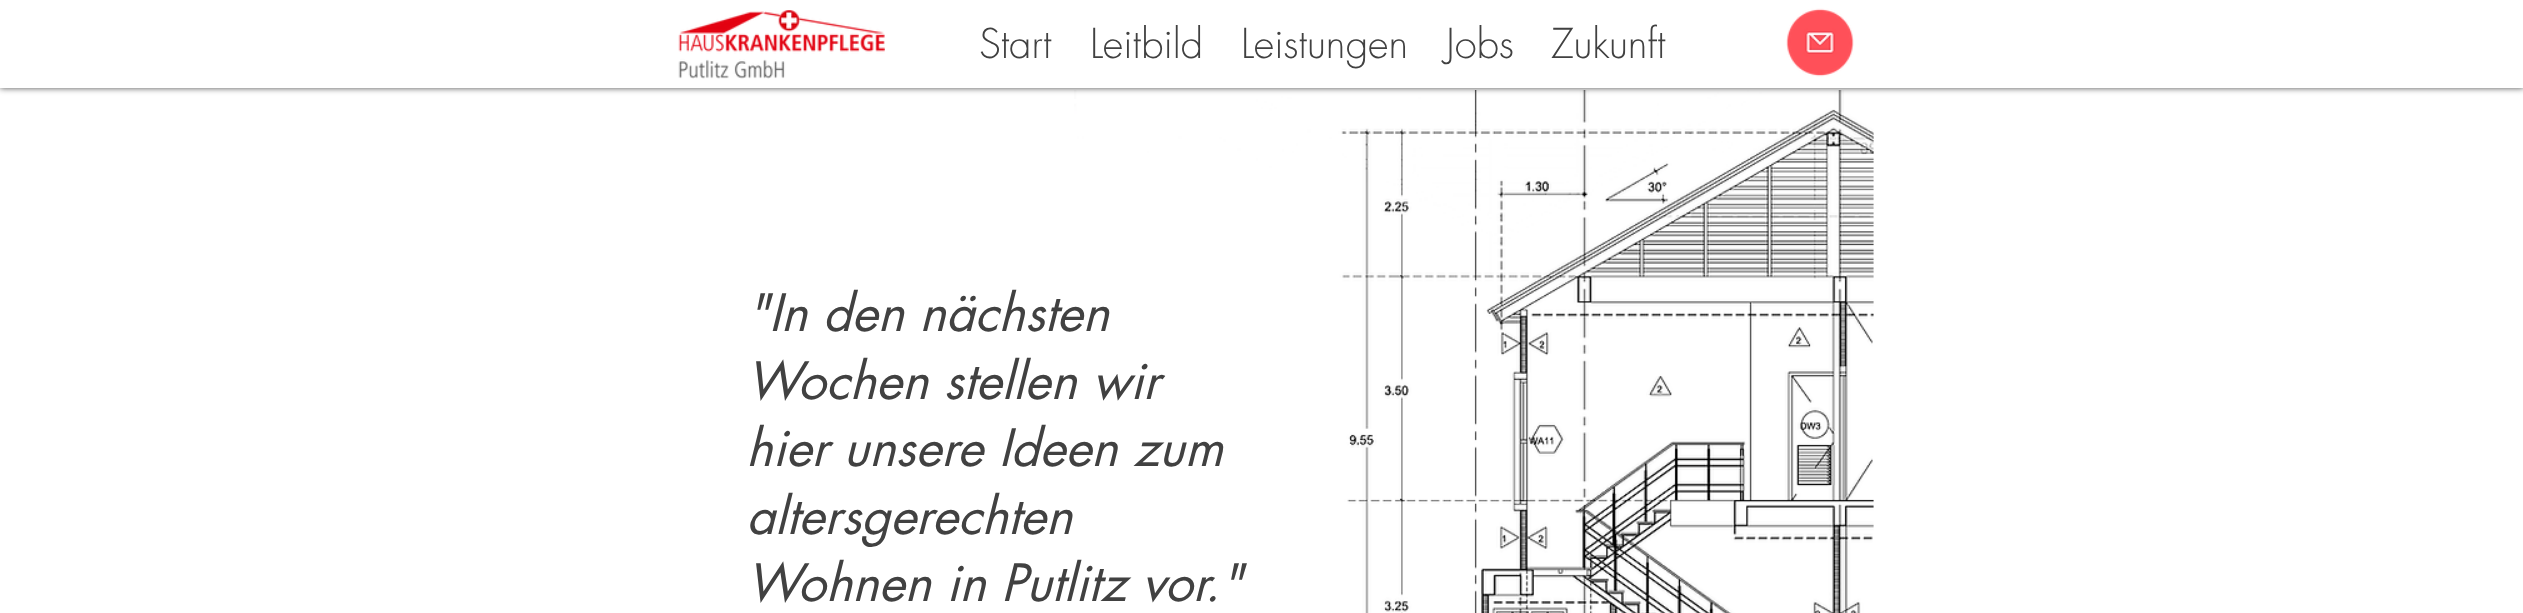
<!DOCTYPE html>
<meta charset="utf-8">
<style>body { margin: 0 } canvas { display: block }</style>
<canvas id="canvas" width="2523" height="613"></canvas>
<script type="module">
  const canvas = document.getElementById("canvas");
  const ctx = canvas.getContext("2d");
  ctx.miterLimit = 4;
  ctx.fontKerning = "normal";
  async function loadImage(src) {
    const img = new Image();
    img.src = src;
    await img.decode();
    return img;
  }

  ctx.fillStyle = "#ffffff";
  ctx.fillRect(0, 0, 2523, 613);
  ctx.drawImage(await loadImage("img3.png"), 1074, 90, 800, 523);
  ctx.fillStyle = "rgba(0, 0, 0, 0.7)";
  ctx.filter = "blur(3px)";
  ctx.beginPath();
  ctx.rect(0, 0, 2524, 88);
  ctx.fill();
  ctx.filter = "none";
  ctx.fillStyle = "#ffffff";
  ctx.fillRect(0, 0, 2523, 88);
  ctx.drawImage(await loadImage("img1.png"), 678, 10, 207, 69);
  ctx.font = "300 40px futura";
  ctx.fillStyle = "#414141";
  ctx.fillText("Start", 979, 58);
  ctx.fillText("Leitbild", 1090, 58);
  ctx.fillText("Leistungen", 1241, 58);
  ctx.fillText("Jobs", 1446, 58);
  ctx.fillText("Zukunft", 1551, 58);
  ctx.drawImage(await loadImage("img2.png"), 1786, 8, 68, 69);
  ctx.font = "italic 50px futura";
  ctx.fillText("\"In den nächsten", 746, 331);
  ctx.fillText("Wochen stellen wir", 746, 399);
  ctx.fillText("hier unsere Ideen zum", 746, 466);
  ctx.fillText("altersgerechten", 746, 534);
  ctx.fillText("Wohnen in Putlitz vor.\"", 746, 601);
</script>
